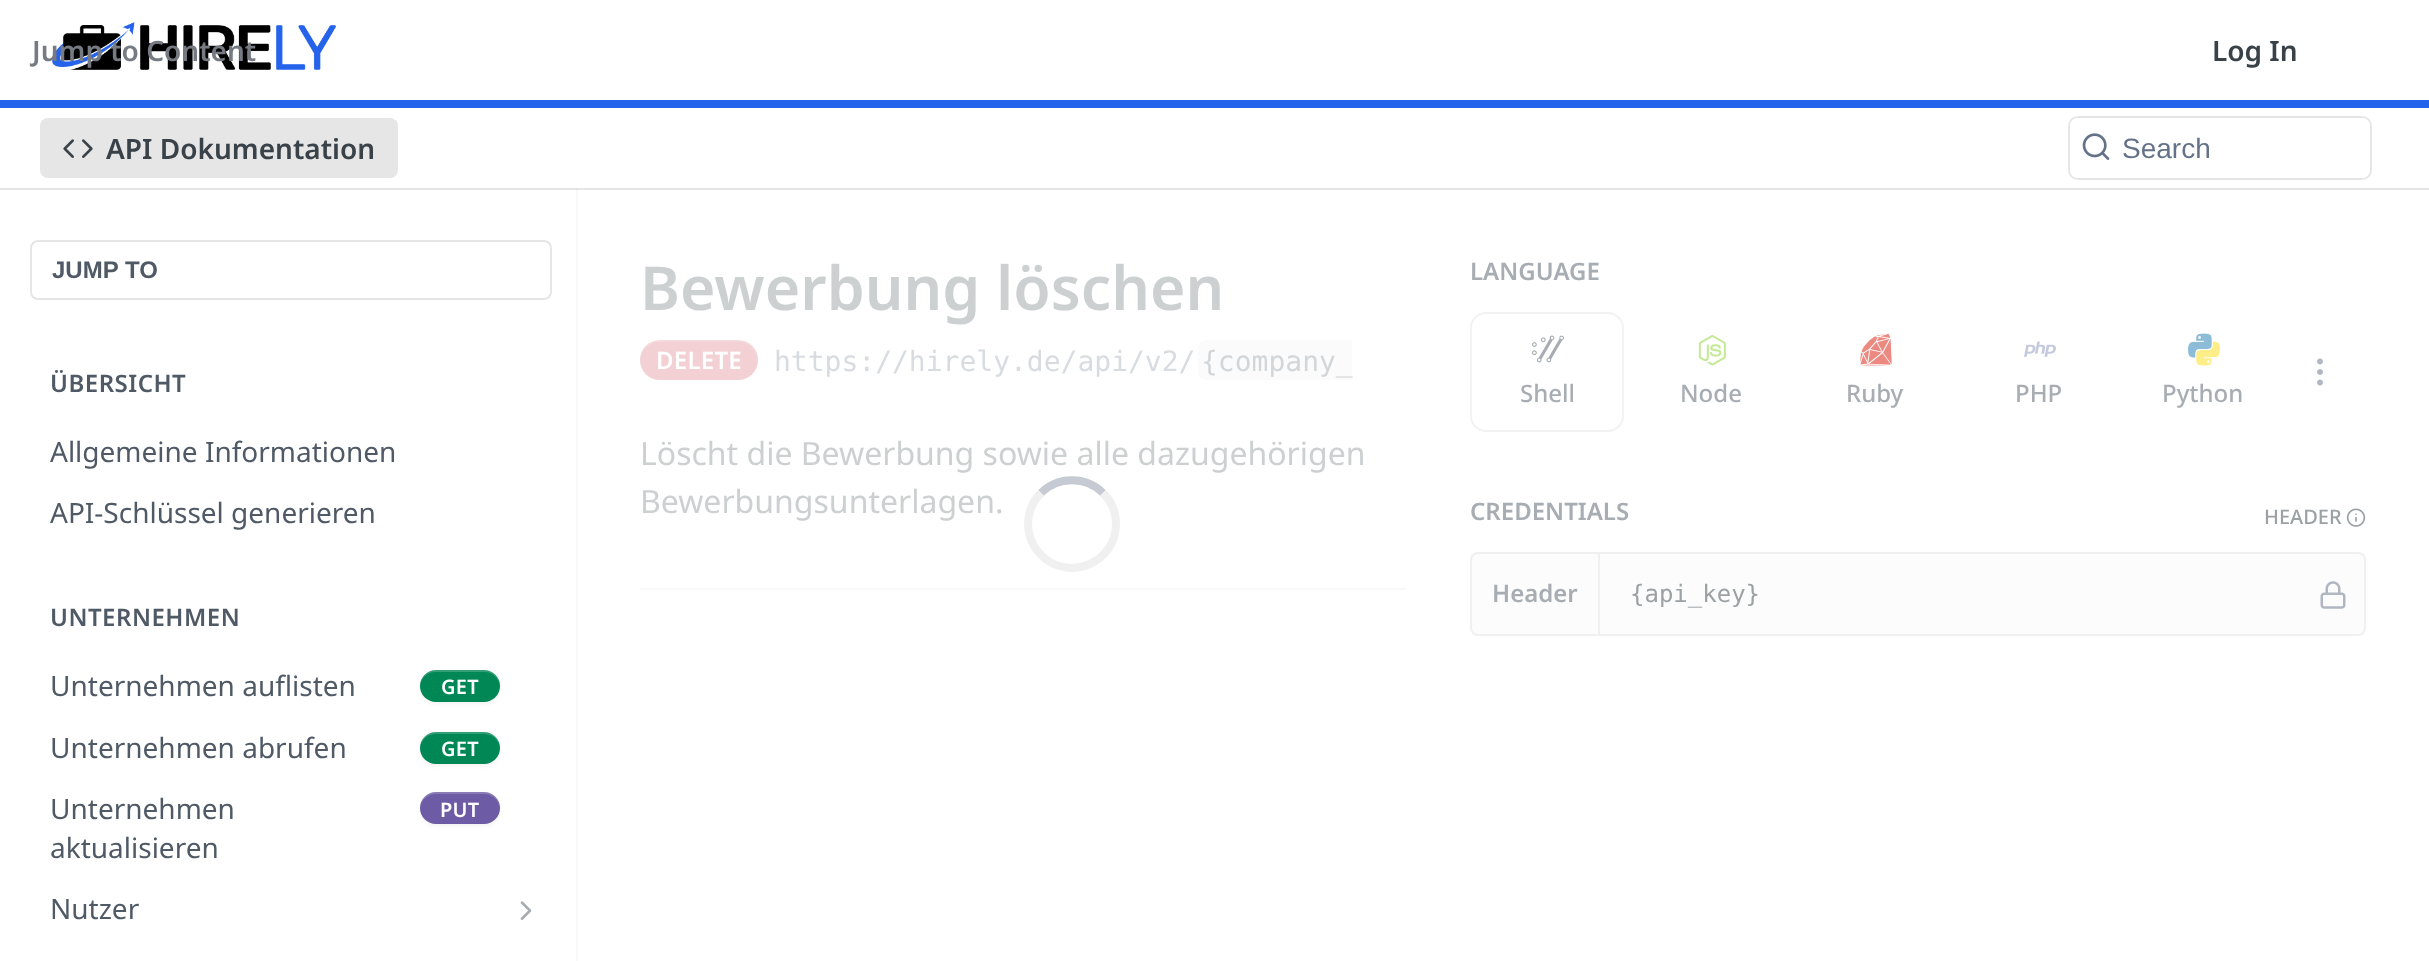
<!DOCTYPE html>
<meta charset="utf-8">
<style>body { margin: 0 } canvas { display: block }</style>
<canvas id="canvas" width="2429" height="961"></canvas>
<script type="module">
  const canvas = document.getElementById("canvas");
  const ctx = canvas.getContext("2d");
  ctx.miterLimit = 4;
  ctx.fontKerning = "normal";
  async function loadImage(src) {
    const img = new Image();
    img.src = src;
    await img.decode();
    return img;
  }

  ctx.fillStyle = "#ffffff";
  ctx.fillRect(0, 0, 2429, 961);
  ctx.fillStyle = "#e6e6e6";
  ctx.fillRect(0, 188, 2429, 2);
  ctx.fillStyle = "#2463eb";
  ctx.fillRect(0, 100, 2429, 8);
  ctx.drawImage(await loadImage("img1.png"), 52, 22, 284, 48);
  ctx.font = "600 28px Noto Sans";
  ctx.fillStyle = "#767a82";
  ctx.fillText("Jump to Content", 32, 61);
  ctx.fillStyle = "#384248";
  ctx.fillText("Log In", 2212, 61);
  ctx.fillStyle = "#e6e6e6";
  ctx.beginPath();
  ctx.roundRect(40, 118, 358, 60, 8);
  ctx.fill();
  ctx.drawImage(await loadImage("img2.png"), 63, 139, 30, 19);
  ctx.fillStyle = "#384248";
  ctx.fillText("API Dokumentation", 106, 159);
  ctx.beginPath();
  ctx.roundRect(2069, 117, 302, 62, 9);
  ctx.strokeStyle = "#e6e6e6";
  ctx.lineWidth = 2;
  ctx.stroke();
  ctx.fillStyle = "#ffffff";
  ctx.beginPath();
  ctx.roundRect(2070, 118, 300, 60, 8);
  ctx.fill();
  ctx.drawImage(await loadImage("img3.png"), 2082, 133, 28, 27);
  ctx.font = "28px Liberation Sans";
  ctx.fillStyle = "#637288";
  ctx.fillText("Search", 2122, 158);
  ctx.fillStyle = "#f9f9f9";
  ctx.fillRect(576, 188, 2, 773);
  ctx.fillStyle = "#e0e0e0";
  ctx.fillRect(576, 188, 2, 2);
  ctx.beginPath();
  ctx.roundRect(31, 241, 520, 58, 7);
  ctx.stroke();
  ctx.font = "bold 24px Liberation Sans";
  ctx.fillStyle = "#4f5a66";
  ctx.fillText("JUMP TO", 52, 278);
  ctx.letterSpacing = "0.5px";
  ctx.font = "600 24px Noto Sans";
  ctx.fillText("ÜBERSICHT", 50, 392);
  ctx.letterSpacing = "0px";
  ctx.font = "28px Noto Sans";
  ctx.fillText("Allgemeine Informationen", 50, 462);
  ctx.fillText("API-Schlüssel generieren", 50, 523);
  ctx.letterSpacing = "0.5px";
  ctx.font = "600 24px Noto Sans";
  ctx.fillText("UNTERNEHMEN", 50, 626);
  ctx.letterSpacing = "0px";
  ctx.font = "28px Noto Sans";
  ctx.fillText("Unternehmen auflisten", 50, 696);
  ctx.fillStyle = "rgba(0, 0, 0, 0.05)";
  ctx.filter = "blur(2px)";
  ctx.beginPath();
  ctx.roundRect(420, 672, 80, 32, 16);
  ctx.fill();
  ctx.filter = "none";
  ctx.fillStyle = "#008756";
  ctx.beginPath();
  ctx.roundRect(420, 670, 80, 32, 16);
  ctx.fill();
  ctx.fillStyle = "rgba(255, 255, 255, 0.2)";
  ctx.beginPath();
  ctx.moveTo(436, 672);
  ctx.lineTo(484, 672);
  ctx.bezierCurveTo(493, 672, 499, 678, 500, 687);
  ctx.bezierCurveTo(500, 679, 495, 672, 487, 670);
  ctx.lineTo(433, 670);
  ctx.bezierCurveTo(425, 672, 420, 679, 420, 687);
  ctx.bezierCurveTo(421, 678, 427, 672, 436, 672);
  ctx.closePath();
  ctx.fill();
  ctx.letterSpacing = "0.25px";
  ctx.font = "600 20px Noto Sans";
  ctx.fillStyle = "#ffffff";
  ctx.fillText("GET", 441, 694);
  ctx.letterSpacing = "0px";
  ctx.font = "28px Noto Sans";
  ctx.fillStyle = "#4f5a66";
  ctx.fillText("Unternehmen abrufen", 50, 758);
  ctx.fillStyle = "rgba(0, 0, 0, 0.05)";
  ctx.filter = "blur(2px)";
  ctx.beginPath();
  ctx.roundRect(420, 734, 80, 32, 16);
  ctx.fill();
  ctx.filter = "none";
  ctx.fillStyle = "#008756";
  ctx.beginPath();
  ctx.roundRect(420, 732, 80, 32, 16);
  ctx.fill();
  ctx.fillStyle = "rgba(255, 255, 255, 0.2)";
  ctx.beginPath();
  ctx.moveTo(436, 734);
  ctx.lineTo(484, 734);
  ctx.bezierCurveTo(493, 734, 499, 740, 500, 749);
  ctx.bezierCurveTo(500, 741, 495, 734, 487, 732);
  ctx.lineTo(433, 732);
  ctx.bezierCurveTo(425, 734, 420, 741, 420, 749);
  ctx.bezierCurveTo(421, 740, 427, 734, 436, 734);
  ctx.closePath();
  ctx.fill();
  ctx.letterSpacing = "0.25px";
  ctx.font = "600 20px Noto Sans";
  ctx.fillStyle = "#ffffff";
  ctx.fillText("GET", 441, 756);
  ctx.letterSpacing = "0px";
  ctx.font = "28px Noto Sans";
  ctx.fillStyle = "#4f5a66";
  ctx.fillText("Unternehmen", 50, 819);
  ctx.fillText("aktualisieren", 50, 858);
  ctx.fillStyle = "rgba(0, 0, 0, 0.05)";
  ctx.filter = "blur(2px)";
  ctx.beginPath();
  ctx.roundRect(420, 794, 80, 32, 16);
  ctx.fill();
  ctx.filter = "none";
  ctx.fillStyle = "#6d5ba6";
  ctx.beginPath();
  ctx.roundRect(420, 792, 80, 32, 16);
  ctx.fill();
  ctx.fillStyle = "rgba(255, 255, 255, 0.2)";
  ctx.beginPath();
  ctx.moveTo(436, 794);
  ctx.lineTo(484, 794);
  ctx.bezierCurveTo(493, 794, 499, 800, 500, 809);
  ctx.bezierCurveTo(500, 801, 495, 794, 487, 792);
  ctx.lineTo(433, 792);
  ctx.bezierCurveTo(425, 794, 420, 801, 420, 809);
  ctx.bezierCurveTo(421, 800, 427, 794, 436, 794);
  ctx.closePath();
  ctx.fill();
  ctx.letterSpacing = "0.25px";
  ctx.font = "600 20px Noto Sans";
  ctx.fillStyle = "#ffffff";
  ctx.fillText("PUT", 440, 817);
  ctx.letterSpacing = "0px";
  ctx.font = "28px Noto Sans";
  ctx.fillStyle = "#4f5a66";
  ctx.fillText("Nutzer", 50, 919);
  ctx.drawImage(await loadImage("img4.png"), 520, 901, 12, 19);
  ctx.fillStyle = "#f9f9f9";
  ctx.fillRect(640, 588, 766, 2);
  ctx.font = "600 60.75px Noto Sans";
  ctx.fillStyle = "#cdd0d1";
  ctx.fillText("Bewerbung löschen", 640, 310);
  ctx.fillStyle = "#f2d0d4";
  ctx.beginPath();
  ctx.roundRect(640, 340, 118, 40, 20);
  ctx.fill();
  ctx.fillStyle = "rgba(255, 255, 255, 0.2)";
  ctx.beginPath();
  ctx.moveTo(660, 342);
  ctx.lineTo(738, 342);
  ctx.bezierCurveTo(749, 342, 757, 350, 758, 361);
  ctx.bezierCurveTo(758, 351, 752, 342, 742, 340);
  ctx.lineTo(725, 340);
  ctx.lineTo(656, 340);
  ctx.bezierCurveTo(646, 342, 640, 351, 640, 361);
  ctx.bezierCurveTo(641, 350, 649, 342, 660, 342);
  ctx.closePath();
  ctx.fill();
  ctx.letterSpacing = "0.25px";
  ctx.font = "600 24px Noto Sans";
  ctx.fillStyle = "#ffffff";
  ctx.fillText("DELETE", 656, 369);
  ctx.letterSpacing = "0px";
  ctx.font = "28px DejaVu Sans Mono";
  ctx.fillStyle = "#d8dce1";
  ctx.fillText("https://hirely.de/api/v2/", 774, 371);
  ctx.fillStyle = "#fbfbfb";
  ctx.beginPath();
  ctx.roundRect(1198, 340, 154, 40, [8, 0, 0, 8]);
  ctx.fill();
  ctx.fillStyle = "#d3d6d9";
  ctx.fillText("{company_", 1201, 371);
  ctx.font = "32px Noto Sans";
  ctx.fillStyle = "#cdd0d1";
  ctx.fillText("Löscht die Bewerbung sowie alle dazugehörigen", 640, 465);
  ctx.fillText("Bewerbungsunterlagen.", 640, 513);
  ctx.beginPath();
  ctx.moveTo(1041, 493);
  ctx.bezierCurveTo(1058, 476, 1086, 476, 1103, 493);
  ctx.strokeStyle = "#c6cbd3";
  ctx.lineWidth = 8;
  ctx.stroke();
  ctx.beginPath();
  ctx.moveTo(1103, 493);
  ctx.bezierCurveTo(1111.5, 501, 1116, 512.5, 1116, 524);
  ctx.bezierCurveTo(1116, 563, 1068.5, 582.5, 1041, 555);
  ctx.bezierCurveTo(1035, 549, 1030.5, 541, 1029, 532.5);
  ctx.bezierCurveTo(1026, 518.5, 1030.5, 503, 1041, 493);
  ctx.strokeStyle = "#f0f0f0";
  ctx.stroke();
  ctx.font = "600 24px Noto Sans";
  ctx.fillStyle = "#a7adb3";
  ctx.fillText("LANGUAGE", 1470, 280);
  ctx.drawImage(await loadImage("img5.png"), 2317, 358, 6, 28);
  ctx.beginPath();
  ctx.roundRect(1471, 313, 152, 118, 15);
  ctx.strokeStyle = "#f2f2f2";
  ctx.lineWidth = 2;
  ctx.stroke();
  ctx.drawImage(await loadImage("img6.png"), 1532, 335, 32, 28);
  ctx.font = "500 24px Noto Sans";
  ctx.fillText("Shell", 1520, 402);
  ctx.drawImage(await loadImage("img7.png"), 1698, 335, 28, 31);
  ctx.fillText("Node", 1680, 402);
  ctx.drawImage(await loadImage("img8.png"), 1860, 333, 32, 33);
  ctx.fillText("Ruby", 1846, 402);
  ctx.drawImage(await loadImage("img9.png"), 2024, 341, 32, 16);
  ctx.fillText("PHP", 2015, 402);
  ctx.drawImage(await loadImage("img10.png"), 2188, 333, 24, 25);
  ctx.drawImage(await loadImage("img11.png"), 2196, 341, 24, 25);
  ctx.fillText("Python", 2162, 402);
  ctx.font = "600 24px Noto Sans";
  ctx.fillText("CREDENTIALS", 1470, 520);
  ctx.font = "500 20px Noto Sans";
  ctx.fillStyle = "#9ca1a4";
  ctx.fillText("HEADER", 2264, 524);
  ctx.drawImage(await loadImage("img12.png"), 2346, 508, 20, 19);
  ctx.fillStyle = "#fcfcfc";
  ctx.beginPath();
  ctx.roundRect(1471, 553, 894, 82, 7);
  ctx.fill();
  ctx.strokeStyle = "#f0f0f0";
  ctx.stroke();
  ctx.fillStyle = "#f0f0f0";
  ctx.fillRect(1598, 554, 2, 80);
  ctx.font = "600 24px Noto Sans";
  ctx.fillStyle = "#a7adb3";
  ctx.fillText("Header", 1492, 602);
  ctx.font = "24px DejaVu Sans Mono";
  ctx.fillStyle = "#9ca1a4";
  ctx.fillText("{api_key}", 1630, 602);
  ctx.drawImage(await loadImage("img13.png"), 2320, 581, 26, 28);
</script>
